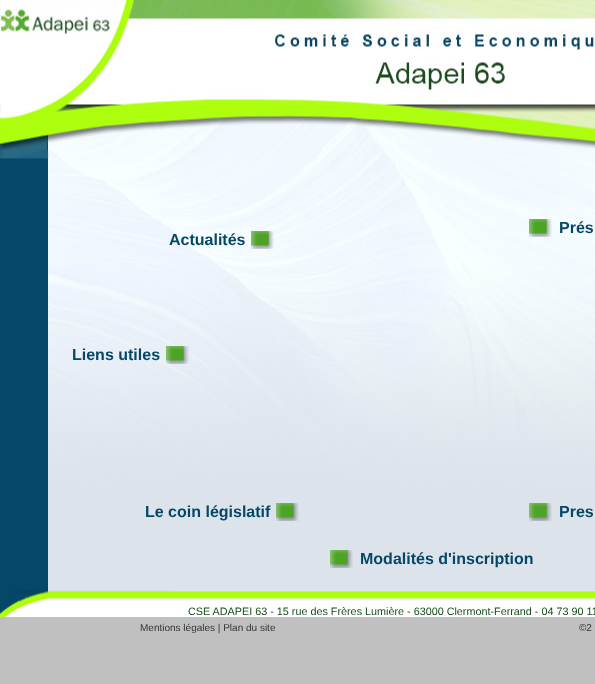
<!DOCTYPE html>
<meta charset="utf-8">
<style>body { margin: 0 } canvas { display: block }</style>
<canvas id="canvas" width="595" height="684"></canvas>
<script type="module">
  const canvas = document.getElementById("canvas");
  const ctx = canvas.getContext("2d");
  ctx.miterLimit = 4;
  ctx.fontKerning = "normal";
  async function loadImage(src) {
    const img = new Image();
    img.src = src;
    await img.decode();
    return img;
  }

  ctx.fillStyle = "#c0c0c0";
  ctx.fillRect(0, 0, 595, 684);
  ctx.drawImage(await loadImage("img1.png"), 0, 0, 595, 617);
  ctx.drawImage(await loadImage("img2.png"), 529, 219, 23, 18);
  ctx.font = "bold 16px Liberation Sans";
  ctx.fillStyle = "#054766";
  ctx.fillText("Prés", 559, 233);
  ctx.drawImage(await loadImage("img3.png"), 251, 231, 23, 18);
  ctx.fillText("Actualités", 169, 245);
  ctx.drawImage(await loadImage("img4.png"), 166, 346, 23, 18);
  ctx.fillText("Liens utiles", 72, 360);
  ctx.drawImage(await loadImage("img5.png"), 276, 503, 23, 18);
  ctx.fillText("Le coin législatif", 145, 517);
  ctx.drawImage(await loadImage("img5.png"), 529, 503, 23, 18);
  ctx.fillText("Pres", 559, 517);
  ctx.drawImage(await loadImage("img5.png"), 330, 550, 23, 18);
  ctx.fillText("Modalités d'inscription", 360, 564);
  ctx.drawImage(await loadImage("img6.png"), 0, 590, 595, 27);
  ctx.font = "10.8px Liberation Sans";
  ctx.fillStyle = "#194c1c";
  ctx.fillText("CSE ADAPEI 63 - 15 rue des Frères Lumière - 63000 Clermont-Ferrand - 04 73 90 11", 188, 615);
  ctx.font = "10px Liberation Sans";
  ctx.fillStyle = "#333333";
  ctx.fillText("Mentions légales | Plan du site", 140, 631);
  ctx.fillText("©2", 579, 631);
</script>
